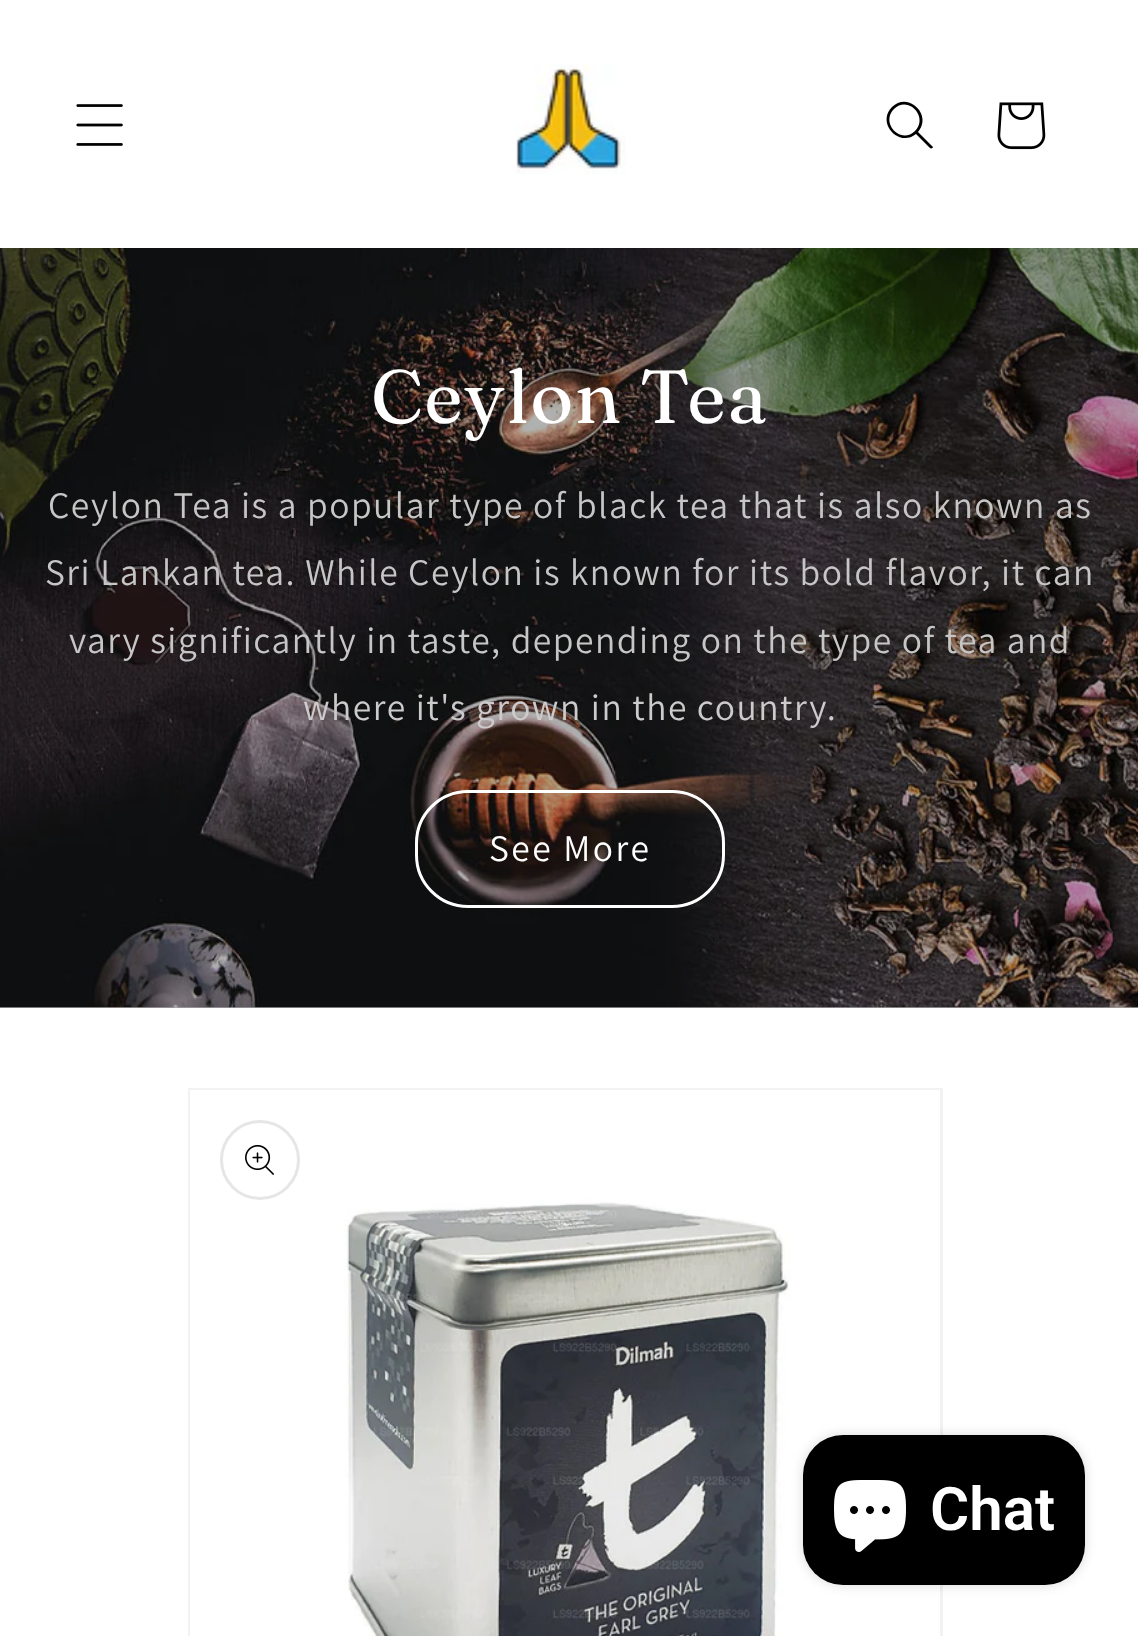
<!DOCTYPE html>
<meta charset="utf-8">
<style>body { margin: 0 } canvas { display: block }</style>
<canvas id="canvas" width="1138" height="1636"></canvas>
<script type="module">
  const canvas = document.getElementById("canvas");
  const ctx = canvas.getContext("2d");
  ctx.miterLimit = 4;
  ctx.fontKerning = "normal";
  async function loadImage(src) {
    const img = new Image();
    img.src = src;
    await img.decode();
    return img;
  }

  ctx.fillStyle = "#ffffff";
  ctx.fillRect(0, 0, 1138, 1636);
  ctx.drawImage(await loadImage("img1.png"), 76, 104, 47, 42);
  ctx.drawImage(await loadImage("img2.png"), 515, 64, 111, 111);
  ctx.fillStyle = "#000000";
  ctx.beginPath();
  ctx.moveTo(915, 131);
  ctx.bezierCurveTo(901, 145, 880, 123, 894, 109);
  ctx.bezierCurveTo(908, 95, 929, 117, 915, 131);
  ctx.moveTo(916, 134);
  ctx.bezierCurveTo(899, 148, 876, 123, 892, 107);
  ctx.bezierCurveTo(908, 91, 933, 115, 918, 132);
  ctx.lineTo(933, 147);
  ctx.bezierCurveTo(933, 148, 931, 149, 930, 148);
  ctx.closePath();
  ctx.fill("evenodd");
  ctx.drawImage(await loadImage("img3.png"), 997, 102, 49, 48);
  ctx.fillStyle = "#a1a1a1";
  ctx.fillRect(0, 1007, 1138, 1);
  ctx.drawImage(await loadImage("img4.png"), 0, 248, 1138, 760);
  ctx.letterSpacing = "1.5px";
  ctx.font = "75px Fraunces";
  ctx.fillStyle = "#ffffff";
  ctx.fillText("Ceylon Tea", 371, 423);
  ctx.font = "37.5px Assistant";
  ctx.fillStyle = "#c6c6c6";
  ctx.fillText("Ceylon Tea is a popular type of black tea that is also known as", 48, 518);
  ctx.fillText("Sri Lankan tea. While Ceylon is known for its bold flavor, it can", 45, 585);
  ctx.fillText("vary significantly in taste, depending on the type of tea and", 69, 653);
  ctx.fillStyle = "#cccacb";
  ctx.fillText("where it's grown in the country.", 303, 720);
  ctx.beginPath();
  ctx.roundRect(416.5, 791.5, 307, 115, 51.5);
  ctx.strokeStyle = "#ffffff";
  ctx.lineWidth = 3;
  ctx.stroke();
  ctx.letterSpacing = "2.5px";
  ctx.fillStyle = "#ffffff";
  ctx.fillText("See More", 489, 861);
  ctx.strokeStyle = "#f2f2f2";
  ctx.strokeRect(189.5, 1089.5, 752, 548);
  ctx.drawImage(await loadImage("img5.png"), 190, 1090, 750, 546);
  ctx.beginPath();
  ctx.arc(260, 1160, 38.5, 0, Math.PI * 2);
  ctx.strokeStyle = "#e6e6e6";
  ctx.stroke();
  ctx.drawImage(await loadImage("img6.png"), 245, 1144, 29, 31);
  ctx.fillStyle = "rgba(0, 0, 0, 0.15)";
  ctx.filter = "blur(6px)";
  ctx.beginPath();
  ctx.roundRect(803, 1435, 282, 150, 40);
  ctx.fill();
  ctx.filter = "none";
  ctx.fillStyle = "#000000";
  ctx.beginPath();
  ctx.roundRect(803, 1435, 282, 150, 40);
  ctx.fill();
  ctx.drawImage(await loadImage("img7.png"), 834, 1480, 72, 72);
  ctx.letterSpacing = "0px";
  ctx.font = "600 60px Roboto";
  ctx.fillStyle = "#ffffff";
  ctx.fillText("Chat", 930, 1530);
</script>
